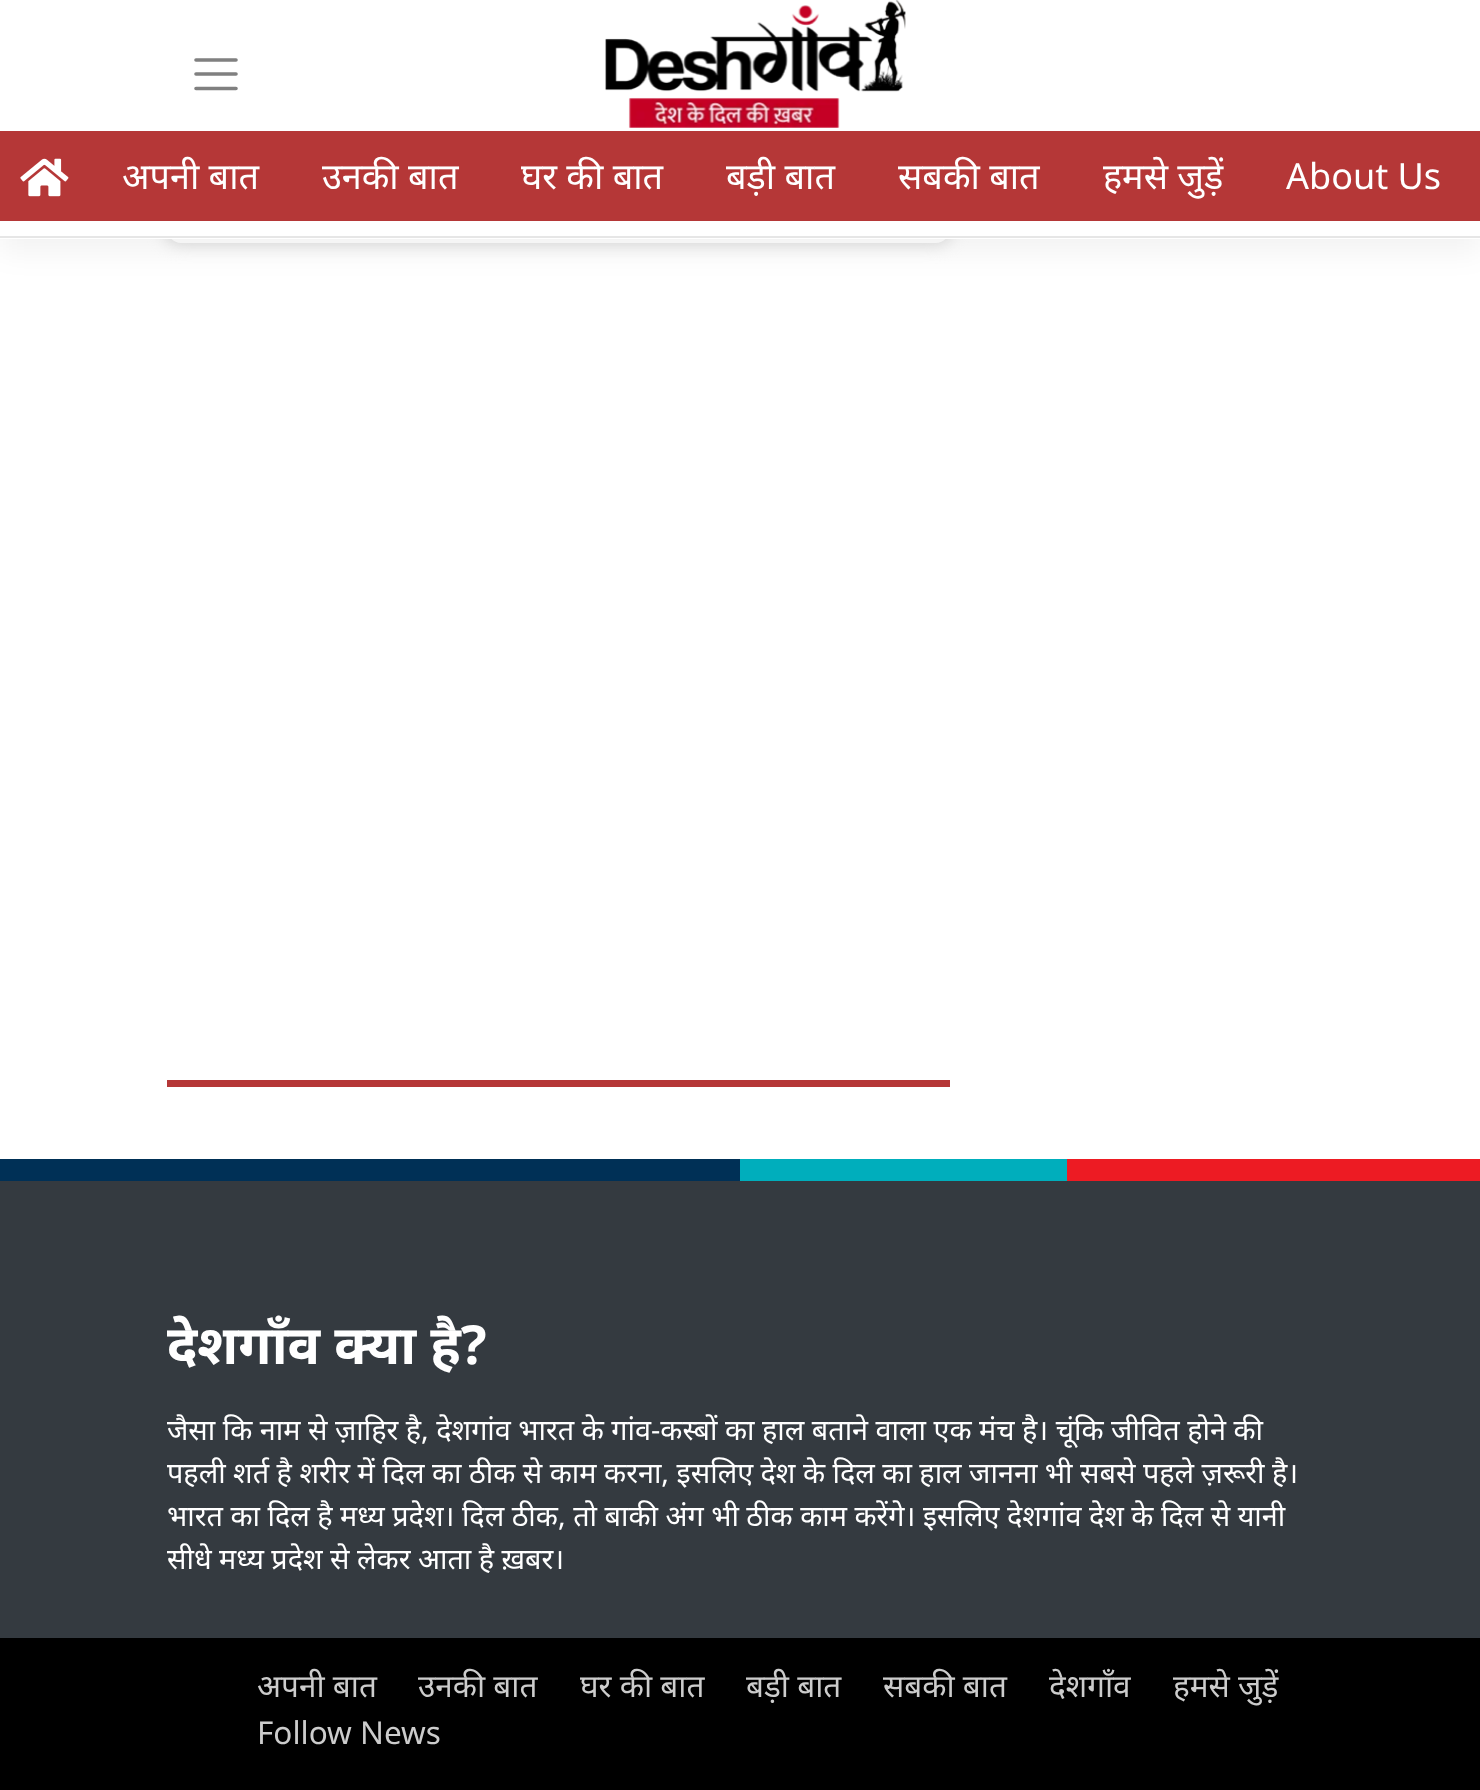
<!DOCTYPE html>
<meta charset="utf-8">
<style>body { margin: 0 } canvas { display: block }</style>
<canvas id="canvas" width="1480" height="1790"></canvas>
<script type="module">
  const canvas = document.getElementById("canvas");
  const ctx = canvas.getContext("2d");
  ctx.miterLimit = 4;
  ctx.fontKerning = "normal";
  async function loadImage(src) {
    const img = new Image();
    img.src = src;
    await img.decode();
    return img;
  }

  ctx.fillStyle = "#ffffff";
  ctx.fillRect(0, 0, 1480, 1790);
  ctx.save();
  ctx.beginPath();
  ctx.moveTo(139, 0);
  ctx.lineTo(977, 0);
  ctx.lineTo(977, 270);
  ctx.lineTo(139, 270);
  ctx.closePath();
  ctx.moveTo(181, -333);
  ctx.lineTo(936, -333);
  ctx.bezierCurveTo(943.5, -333, 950, -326.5, 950, -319);
  ctx.lineTo(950, 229);
  ctx.bezierCurveTo(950, 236.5, 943.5, 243, 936, 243);
  ctx.lineTo(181, 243);
  ctx.bezierCurveTo(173.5, 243, 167, 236.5, 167, 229);
  ctx.lineTo(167, -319);
  ctx.bezierCurveTo(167, -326.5, 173.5, -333, 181, -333);
  ctx.closePath();
  ctx.clip("evenodd");
  ctx.fillStyle = "#dedede";
  ctx.filter = "blur(8px)";
  ctx.beginPath();
  ctx.roundRect(164, -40, 788, 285, 16);
  ctx.fill();
  ctx.filter = "none";
  ctx.restore();
  ctx.fillStyle = "#b53737";
  ctx.fillRect(167, 1080, 783, 7);
  ctx.fillStyle = "rgba(0, 0, 0, 0.05)";
  ctx.filter = "blur(14.5px)";
  ctx.beginPath();
  ctx.rect(0, 14, 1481, 238);
  ctx.fill();
  ctx.filter = "none";
  ctx.fillStyle = "#ffffff";
  ctx.fillRect(0, 0, 1480, 239);
  ctx.fillStyle = "#e6e6e6";
  ctx.fillRect(0, 236, 1480, 2);
  ctx.beginPath();
  ctx.moveTo(196, 60);
  ctx.lineTo(236, 60);
  ctx.moveTo(196, 74);
  ctx.lineTo(236, 74);
  ctx.moveTo(196, 88.5);
  ctx.lineTo(236, 88.5);
  ctx.strokeStyle = "#808080";
  ctx.lineWidth = 3.6;
  ctx.lineCap = "round";
  ctx.stroke();
  ctx.drawImage(await loadImage("img1.png"), 605, 0, 301, 128);
  ctx.fillStyle = "#b53737";
  ctx.fillRect(0, 131, 1480, 90);
  ctx.drawImage(await loadImage("img2.png"), 20, 158, 49, 39);
  ctx.font = "36px Noto Sans";
  ctx.fillStyle = "#ffffff";
  ctx.fillText("अपनी बात", 122, 189);
  ctx.fillText("उनकी बात", 322, 189);
  ctx.fillText("घर की बात", 521, 189);
  ctx.fillText("बड़ी बात", 726, 189);
  ctx.fillText("सबकी बात", 898, 189);
  ctx.fillText("हमसे जुड़ें", 1103, 189);
  ctx.fillText("About Us", 1286, 189);
  ctx.fillStyle = "#003056";
  ctx.fillRect(0, 1159, 740, 22);
  ctx.fillStyle = "#00aebc";
  ctx.fillRect(740, 1159, 327, 22);
  ctx.fillStyle = "#ed1b23";
  ctx.fillRect(1067, 1159, 413, 22);
  ctx.fillStyle = "#343a40";
  ctx.fillRect(0, 1181, 1480, 457);
  ctx.font = "bold 54px Noto Sans";
  ctx.fillStyle = "#ffffff";
  ctx.fillText("देशगाँव क्या है?", 167, 1364);
  ctx.font = "28.8px Noto Sans";
  ctx.fillText("जैसा कि नाम से ज़ाहिर है, देशगांव भारत के गांव-कस्‍बों का हाल बताने वाला एक मंच है। चूंकि जीवित होने की", 167, 1440);
  ctx.fillText("पहली शर्त है शरीर में दिल का ठीक से काम करना, इसलिए देश के दिल का हाल जानना भी सबसे पहले ज़रूरी है।", 167, 1483);
  ctx.fillText("भारत का दिल है मध्‍य प्रदेश। दिल ठीक, तो बाकी अंग भी ठीक काम करेंगे। इसलिए देशगांव देश के दिल से यानी", 167, 1526);
  ctx.fillText("सीधे मध्‍य प्रदेश से लेकर आता है ख़बर।", 167, 1569);
  ctx.fillStyle = "#000000";
  ctx.fillRect(0, 1638, 1480, 152);
  ctx.font = "31.5px Noto Sans";
  ctx.fillStyle = "#cccccc";
  ctx.fillText("अपनी बात", 257, 1697);
  ctx.fillText("उनकी बात", 418, 1697);
  ctx.fillText("घर की बात", 580, 1697);
  ctx.fillText("बड़ी बात", 746, 1697);
  ctx.fillText("सबकी बात", 883, 1697);
  ctx.fillText("देशगाँव", 1049, 1697);
  ctx.fillText("हमसे जुड़ें", 1173, 1697);
  ctx.fillText("Follow News", 257, 1744);
</script>
